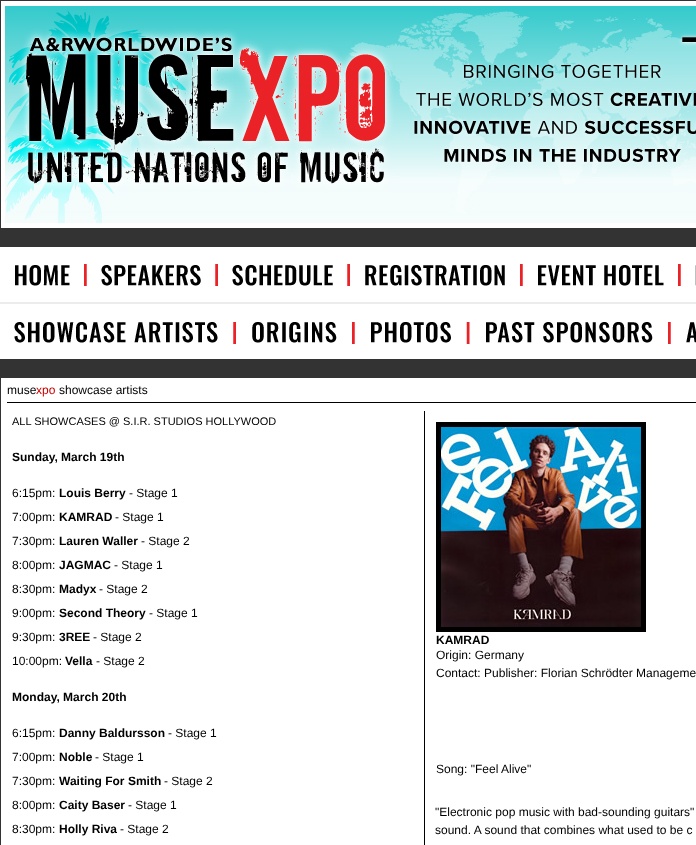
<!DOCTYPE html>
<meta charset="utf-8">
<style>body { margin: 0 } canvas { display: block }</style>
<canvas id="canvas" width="696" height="845"></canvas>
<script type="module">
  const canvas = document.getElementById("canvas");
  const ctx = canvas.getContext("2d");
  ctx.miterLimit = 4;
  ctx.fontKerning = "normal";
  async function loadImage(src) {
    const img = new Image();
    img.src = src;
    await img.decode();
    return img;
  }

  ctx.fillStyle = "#333333";
  ctx.fillRect(0, 0, 696, 845);
  ctx.drawImage(await loadImage("img1.png"), 1, 1, 695, 227);
  ctx.drawImage(await loadImage("img2.png"), 0, 247, 696, 112);
  ctx.fillStyle = "#ffffff";
  ctx.fillRect(1, 378, 695, 467);
  ctx.font = "12px Liberation Sans";
  ctx.fillStyle = "#000000";
  ctx.fillText("muse", 7, 394);
  ctx.fillStyle = "#cc0000";
  ctx.fillText("xpo", 36, 394);
  ctx.fillStyle = "#000000";
  ctx.fillText("showcase artists", 59, 394);
  ctx.fillRect(7, 402, 689, 1);
  ctx.font = "11px Liberation Sans";
  ctx.fillText("ALL SHOWCASES @ S.I.R. STUDIOS HOLLYWOOD", 12, 425);
  ctx.font = "bold 12px Liberation Sans";
  ctx.fillText("Sunday, March 19th", 12, 461);
  ctx.font = "12px Liberation Sans";
  ctx.fillText("6:15pm:", 12, 497);
  ctx.font = "bold 12px Liberation Sans";
  ctx.fillText("Louis Berry", 59, 497);
  ctx.font = "12px Liberation Sans";
  ctx.fillText("- Stage 1", 129, 497);
  ctx.fillText("7:00pm:", 12, 521);
  ctx.font = "bold 12px Liberation Sans";
  ctx.fillText("KAMRAD", 59, 521);
  ctx.font = "12px Liberation Sans";
  ctx.fillText("- Stage 1", 115, 521);
  ctx.fillText("7:30pm:", 12, 545);
  ctx.font = "bold 12px Liberation Sans";
  ctx.fillText("Lauren Waller", 59, 545);
  ctx.font = "12px Liberation Sans";
  ctx.fillText("- Stage 2", 141, 545);
  ctx.fillText("8:00pm:", 12, 569);
  ctx.font = "bold 12px Liberation Sans";
  ctx.fillText("JAGMAC", 59, 569);
  ctx.font = "12px Liberation Sans";
  ctx.fillText("- Stage 1", 114, 569);
  ctx.fillText("8:30pm:", 12, 593);
  ctx.font = "bold 12px Liberation Sans";
  ctx.fillText("Madyx", 59, 593);
  ctx.font = "12px Liberation Sans";
  ctx.fillText("- Stage 2", 99, 593);
  ctx.fillText("9:00pm:", 12, 617);
  ctx.font = "bold 12px Liberation Sans";
  ctx.fillText("Second Theory", 59, 617);
  ctx.font = "12px Liberation Sans";
  ctx.fillText("- Stage 1", 149, 617);
  ctx.fillText("9:30pm:", 12, 641);
  ctx.font = "bold 12px Liberation Sans";
  ctx.fillText("3REE", 59, 641);
  ctx.font = "12px Liberation Sans";
  ctx.fillText("- Stage 2", 93, 641);
  ctx.fillText("10:00pm:", 12, 665);
  ctx.font = "bold 12px Liberation Sans";
  ctx.fillText("Vella", 65, 665);
  ctx.font = "12px Liberation Sans";
  ctx.fillText("- Stage 2", 96, 665);
  ctx.font = "bold 12px Liberation Sans";
  ctx.fillText("Monday, March 20th", 12, 701);
  ctx.font = "12px Liberation Sans";
  ctx.fillText("6:15pm:", 12, 737);
  ctx.font = "bold 12px Liberation Sans";
  ctx.fillText("Danny Baldursson", 59, 737);
  ctx.font = "12px Liberation Sans";
  ctx.fillText("- Stage 1", 168, 737);
  ctx.fillText("7:00pm:", 12, 761);
  ctx.font = "bold 12px Liberation Sans";
  ctx.fillText("Noble", 59, 761);
  ctx.font = "12px Liberation Sans";
  ctx.fillText("- Stage 1", 95, 761);
  ctx.fillText("7:30pm:", 12, 785);
  ctx.font = "bold 12px Liberation Sans";
  ctx.fillText("Waiting For Smith", 59, 785);
  ctx.font = "12px Liberation Sans";
  ctx.fillText("- Stage 2", 164, 785);
  ctx.fillText("8:00pm:", 12, 809);
  ctx.font = "bold 12px Liberation Sans";
  ctx.fillText("Caity Baser", 59, 809);
  ctx.font = "12px Liberation Sans";
  ctx.fillText("- Stage 1", 128, 809);
  ctx.fillText("8:30pm:", 12, 833);
  ctx.font = "bold 12px Liberation Sans";
  ctx.fillText("Holly Riva", 59, 833);
  ctx.font = "12px Liberation Sans";
  ctx.fillText("- Stage 2", 120, 833);
  ctx.fillRect(424, 411, 1, 434);
  ctx.strokeStyle = "#000000";
  ctx.lineWidth = 5;
  ctx.strokeRect(438.5, 424.5, 205, 205);
  ctx.drawImage(await loadImage("img3.png"), 441, 427, 200, 200);
  ctx.font = "bold 12px Liberation Sans";
  ctx.fillText("KAMRAD", 436, 644);
  ctx.font = "12px Liberation Sans";
  ctx.fillText("Origin: Germany", 436, 659);
  ctx.fillText("Contact: Publisher: Florian Schrödter Manageme", 436, 677);
  ctx.fillText("Song: \"Feel Alive\"", 436, 773);
  ctx.fillText("\"Electronic pop music with bad-sounding guitars\"", 435, 816);
  ctx.fillText("sound. A sound that combines what used to be c", 435, 834);
</script>
